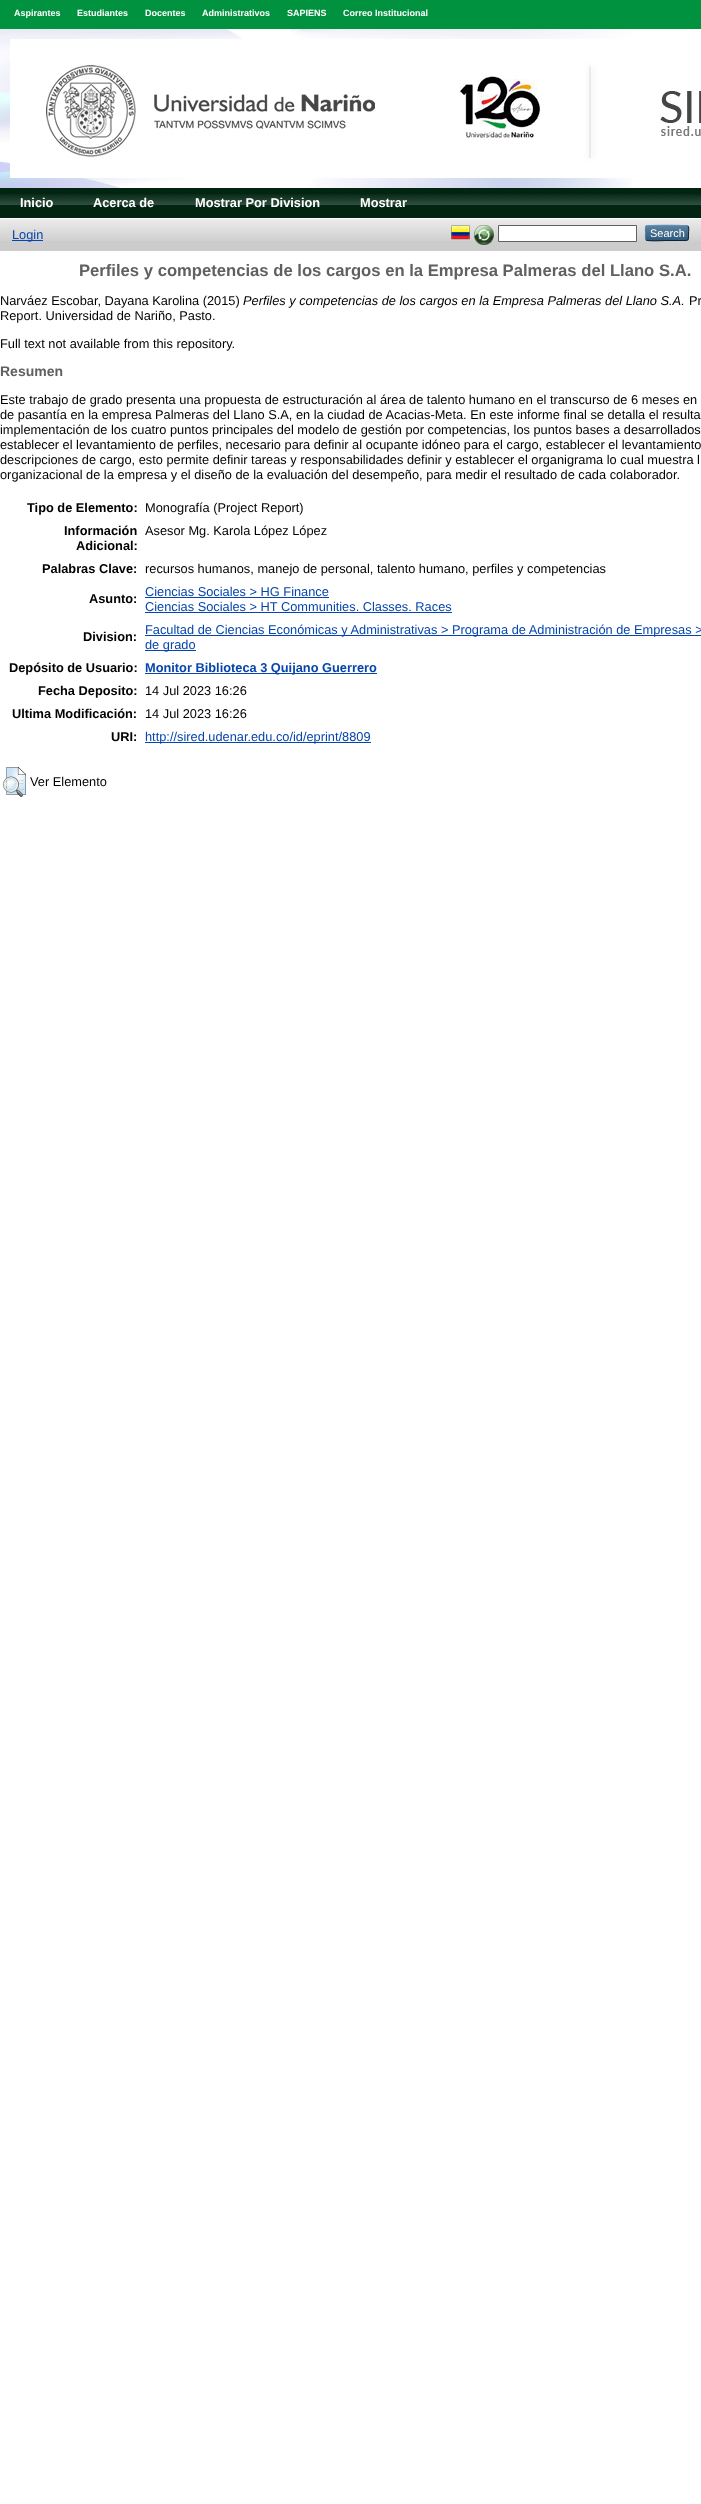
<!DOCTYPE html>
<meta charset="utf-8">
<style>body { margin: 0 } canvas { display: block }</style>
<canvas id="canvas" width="701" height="2504"></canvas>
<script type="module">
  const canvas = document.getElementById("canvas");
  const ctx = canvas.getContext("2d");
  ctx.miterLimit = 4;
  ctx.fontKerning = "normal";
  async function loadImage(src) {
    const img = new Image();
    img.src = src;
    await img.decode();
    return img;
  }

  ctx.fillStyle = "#ffffff";
  ctx.fillRect(0, 0, 701, 2504);
  ctx.fillStyle = "#00923f";
  ctx.fillRect(0, 0, 701, 29);
  ctx.font = "bold 9px Liberation Sans";
  ctx.fillStyle = "#ffffff";
  ctx.fillText("Aspirantes", 14, 16);
  ctx.fillText("Estudiantes", 77, 16);
  ctx.fillText("Docentes", 145, 16);
  ctx.fillText("Administrativos", 202, 16);
  ctx.fillText("SAPIENS", 287, 16);
  ctx.fillText("Correo Institucional", 343, 16);
  ctx.drawImage(await loadImage("img1.png"), 0, 29, 632, 159);
  ctx.drawImage(await loadImage("img2.png"), 10, 39, 691, 139);
  ctx.fillStyle = "#012511";
  ctx.fillRect(0, 188, 701, 30);
  ctx.drawImage(await loadImage("img3.png"), 0, 194, 701, 11);
  ctx.font = "bold 12.8px Liberation Sans";
  ctx.fillStyle = "#ffffff";
  ctx.fillText("Inicio", 20, 207);
  ctx.fillText("Acerca de", 93, 207);
  ctx.fillText("Mostrar Por Division", 195, 207);
  ctx.fillText("Mostrar", 360, 207);
  ctx.fillStyle = "#cccccc";
  ctx.fillRect(0, 219, 701, 32);
  ctx.drawImage(await loadImage("img4.png"), 0, 219, 701, 22);
  ctx.fillStyle = "#0645ad";
  ctx.fillRect(12, 240, 31, 1);
  ctx.font = "12.8px Liberation Sans";
  ctx.fillText("Login", 12, 239);
  ctx.drawImage(await loadImage("img5.png"), 451, 225, 19, 15);
  ctx.drawImage(await loadImage("img6.png"), 474, 225, 20, 20);
  ctx.fillStyle = "#ffffff";
  ctx.beginPath();
  ctx.rect(498.5, 225.5, 138, 16);
  ctx.fill();
  ctx.strokeStyle = "#606060";
  ctx.stroke();
  ctx.fillStyle = "#1f4f76";
  ctx.beginPath();
  ctx.roundRect(645, 225, 44, 16, 3);
  ctx.fill();
  ctx.drawImage(await loadImage("img7.png"), 645, 225, 44, 16);
  ctx.beginPath();
  ctx.moveTo(646, 226);
  ctx.bezierCurveTo(647.5, 225, 686.5, 225, 688, 226);
  ctx.strokeStyle = "#5b97c7";
  ctx.stroke();
  ctx.beginPath();
  ctx.moveTo(688, 226);
  ctx.bezierCurveTo(689.5, 228, 688.5, 231, 688.5, 233);
  ctx.bezierCurveTo(688.5, 241.5, 689, 240.5, 679.5, 240.5);
  ctx.lineTo(667, 240.5);
  ctx.bezierCurveTo(664, 240.5, 648, 241.5, 646, 240);
  ctx.strokeStyle = "#0d2131";
  ctx.stroke();
  ctx.beginPath();
  ctx.moveTo(646, 240);
  ctx.bezierCurveTo(645, 238.5, 645.5, 234.5, 645.5, 233);
  ctx.bezierCurveTo(645.5, 231.5, 645, 227.5, 646, 226);
  ctx.strokeStyle = "#5287b3";
  ctx.stroke();
  ctx.font = "11px Liberation Sans";
  ctx.fillStyle = "#ffffff";
  ctx.fillText("Search", 650, 237);
  ctx.font = "bold 16.65px Liberation Sans";
  ctx.fillStyle = "#606060";
  ctx.fillText("Perfiles y competencias de los cargos en la Empresa Palmeras del Llano S.A.", 79, 276);
  ctx.font = "12.8px Liberation Sans";
  ctx.fillStyle = "#000000";
  ctx.fillText("Narváez Escobar, Dayana Karolina (2015)", 0, 305);
  ctx.font = "italic 12.8px Liberation Sans";
  ctx.fillText("Perfiles y competencias de los cargos en la Empresa Palmeras del Llano S.A.", 243, 305);
  ctx.font = "12.8px Liberation Sans";
  ctx.fillText("Pr", 689, 305);
  ctx.fillText("Report. Universidad de Nariño, Pasto.", 0, 320);
  ctx.fillText("Full text not available from this repository.", 0, 348);
  ctx.font = "bold 14px Liberation Sans";
  ctx.fillStyle = "#606060";
  ctx.fillText("Resumen", 0, 376);
  ctx.font = "12.8px Liberation Sans";
  ctx.fillStyle = "#000000";
  ctx.fillText("Este trabajo de grado presenta una propuesta de estructuración al área de talento humano en el transcurso de 6 meses en", 0, 404);
  ctx.fillText("de pasantía en la empresa Palmeras del Llano S.A, en la ciudad de Acacias-Meta. En este informe final se detalla el resulta", 0, 419);
  ctx.fillText("implementación de los cuatro puntos principales del modelo de gestión por competencias, los puntos bases a desarrollados", 0, 434);
  ctx.fillText("establecer el levantamiento de perfiles, necesario para definir al ocupante idóneo para el cargo, establecer el levantamiento", 0, 449);
  ctx.fillText("descripciones de cargo, esto permite definir tareas y responsabilidades definir y establecer el organigrama lo cual muestra l", 0, 464);
  ctx.fillText("organizacional de la empresa y el diseño de la evaluación del desempeño, para medir el resultado de cada colaborador.", 0, 479);
  ctx.font = "bold 12.8px Liberation Sans";
  ctx.fillText("Tipo de Elemento:", 27, 512);
  ctx.font = "12.8px Liberation Sans";
  ctx.fillText("Monografía (Project Report)", 145, 512);
  ctx.font = "bold 12.8px Liberation Sans";
  ctx.fillText("Información", 64, 535);
  ctx.fillText("Adicional:", 76, 550);
  ctx.font = "12.8px Liberation Sans";
  ctx.fillText("Asesor Mg. Karola López López", 145, 535);
  ctx.font = "bold 12.8px Liberation Sans";
  ctx.fillText("Palabras Clave:", 42, 573);
  ctx.font = "12.8px Liberation Sans";
  ctx.fillText("recursos humanos, manejo de personal, talento humano, perfiles y competencias", 145, 573);
  ctx.font = "bold 12.8px Liberation Sans";
  ctx.fillText("Asunto:", 89, 603);
  ctx.font = "12.8px Liberation Sans";
  ctx.fillStyle = "#0645ad";
  ctx.fillText("Ciencias Sociales > HG Finance", 145, 596);
  ctx.fillRect(145, 597, 184, 1);
  ctx.fillText("Ciencias Sociales > HT Communities. Classes. Races", 145, 611);
  ctx.fillRect(145, 612, 307, 1);
  ctx.font = "bold 12.8px Liberation Sans";
  ctx.fillStyle = "#000000";
  ctx.fillText("Division:", 83, 641);
  ctx.fillStyle = "#0645ad";
  ctx.fillRect(145, 635, 556, 1);
  ctx.font = "12.8px Liberation Sans";
  ctx.fillText("Facultad de Ciencias Económicas y Administrativas > Programa de Administración de Empresas >", 145, 634);
  ctx.fillRect(145, 650, 51, 1);
  ctx.fillText("de grado", 145, 649);
  ctx.font = "bold 12.8px Liberation Sans";
  ctx.fillStyle = "#000000";
  ctx.fillText("Depósito de Usuario:", 9, 672);
  ctx.fillStyle = "#0645ad";
  ctx.fillRect(145, 673, 232, 1);
  ctx.fillText("Monitor Biblioteca 3 Quijano Guerrero", 145, 672);
  ctx.fillStyle = "#000000";
  ctx.fillText("Fecha Deposito:", 38, 695);
  ctx.font = "12.8px Liberation Sans";
  ctx.fillText("14 Jul 2023 16:26", 145, 695);
  ctx.font = "bold 12.8px Liberation Sans";
  ctx.fillText("Ultima Modificación:", 12, 718);
  ctx.font = "12.8px Liberation Sans";
  ctx.fillText("14 Jul 2023 16:26", 145, 718);
  ctx.font = "bold 12.8px Liberation Sans";
  ctx.fillText("URI:", 111, 741);
  ctx.fillStyle = "#0645ad";
  ctx.fillRect(145, 742, 226, 1);
  ctx.font = "12.8px Liberation Sans";
  ctx.fillText("http://sired.udenar.edu.co/id/eprint/8809", 145, 741);
  ctx.drawImage(await loadImage("img8.png"), 3, 767, 23, 30);
  ctx.fillStyle = "#000000";
  ctx.fillText("Ver Elemento", 30, 786);
</script>
